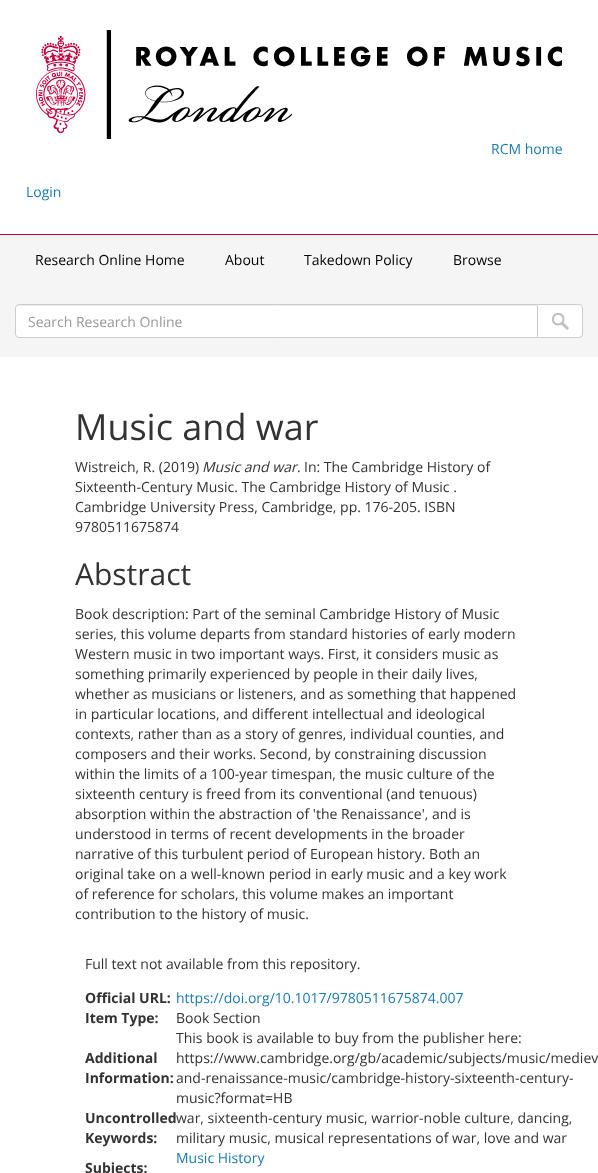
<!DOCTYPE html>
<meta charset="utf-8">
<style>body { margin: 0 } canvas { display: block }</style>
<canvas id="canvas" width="598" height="1173"></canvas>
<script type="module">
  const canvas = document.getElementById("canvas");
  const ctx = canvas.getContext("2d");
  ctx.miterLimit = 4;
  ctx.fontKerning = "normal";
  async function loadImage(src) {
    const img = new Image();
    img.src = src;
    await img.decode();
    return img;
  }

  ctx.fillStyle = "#ffffff";
  ctx.fillRect(0, 0, 598, 1173);
  ctx.drawImage(await loadImage("img1.png"), 36, 30, 526, 109);
  ctx.font = "14px Open Sans";
  ctx.fillStyle = "#1b7ab1";
  ctx.fillText("RCM home", 491, 154);
  ctx.fillText("Login", 26, 197);
  ctx.fillStyle = "#f5f5f5";
  ctx.fillRect(0, 235, 598, 122);
  ctx.fillStyle = "#c50038";
  ctx.fillRect(0, 234, 598, 1);
  ctx.fillStyle = "#000000";
  ctx.fillText("Research Online Home", 35, 265);
  ctx.fillText("About", 225, 265);
  ctx.fillText("Takedown Policy", 304, 265);
  ctx.fillText("Browse", 453, 265);
  ctx.fillStyle = "#ffffff";
  ctx.beginPath();
  ctx.roundRect(537.5, 304.5, 45, 33, [0, 3.5, 3.5, 0]);
  ctx.fill();
  ctx.strokeStyle = "#cccccc";
  ctx.stroke();
  ctx.beginPath();
  ctx.roundRect(15, 304, 523, 34, [4, 0, 0, 4]);
  ctx.fill();
  ctx.fillStyle = "#ececec";
  ctx.beginPath();
  ctx.moveTo(19, 306);
  ctx.lineTo(537, 306);
  ctx.lineTo(537, 305);
  ctx.lineTo(19, 305);
  ctx.bezierCurveTo(17, 305, 16, 307, 16, 309);
  ctx.bezierCurveTo(16, 307, 17, 306, 19, 306);
  ctx.closePath();
  ctx.fill();
  ctx.beginPath();
  ctx.roundRect(15.5, 304.5, 522, 33, [3.5, 0, 0, 3.5]);
  ctx.stroke();
  ctx.fillStyle = "#999999";
  ctx.fillText("Search Research Online", 28, 327);
  ctx.drawImage(await loadImage("img2.png"), 552, 313, 17, 17);
  ctx.font = "36px Open Sans";
  ctx.fillStyle = "#333333";
  ctx.fillText("Music and war", 75, 440);
  ctx.font = "14px Open Sans";
  ctx.fillText("Wistreich, R. (2019)", 75, 472);
  ctx.font = "italic 14px Open Sans";
  ctx.fillText("Music and war.", 202, 472);
  ctx.font = "14px Open Sans";
  ctx.fillText("In: The Cambridge History of", 304, 472);
  ctx.fillText("Sixteenth-Century Music. The Cambridge History of Music .", 75, 492);
  ctx.fillText("Cambridge University Press, Cambridge, pp. 176-205. ISBN", 75, 512);
  ctx.fillText("9780511675874", 75, 532);
  ctx.font = "30px Open Sans";
  ctx.fillText("Abstract", 75, 585);
  ctx.font = "14px Open Sans";
  ctx.fillText("Book description: Part of the seminal Cambridge History of Music", 75, 619);
  ctx.fillText("series, this volume departs from standard histories of early modern", 75, 639);
  ctx.fillText("Western music in two important ways. First, it considers music as", 75, 659);
  ctx.fillText("something primarily experienced by people in their daily lives,", 75, 679);
  ctx.fillText("whether as musicians or listeners, and as something that happened", 75, 699);
  ctx.fillText("in particular locations, and different intellectual and ideological", 75, 719);
  ctx.fillText("contexts, rather than as a story of genres, individual counties, and", 75, 739);
  ctx.fillText("composers and their works. Second, by constraining discussion", 75, 759);
  ctx.fillText("within the limits of a 100-year timespan, the music culture of the", 75, 779);
  ctx.fillText("sixteenth century is freed from its conventional (and tenuous)", 75, 799);
  ctx.fillText("absorption within the abstraction of 'the Renaissance', and is", 75, 819);
  ctx.fillText("understood in terms of recent developments in the broader", 75, 839);
  ctx.fillText("narrative of this turbulent period of European history. Both an", 75, 859);
  ctx.fillText("original take on a well-known period in early music and a key work", 75, 879);
  ctx.fillText("of reference for scholars, this volume makes an important", 75, 899);
  ctx.fillText("contribution to the history of music.", 75, 919);
  ctx.fillText("Full text not available from this repository.", 85, 969);
  ctx.font = "bold 14px Open Sans";
  ctx.fillText("Official URL:", 85, 1003);
  ctx.font = "14px Open Sans";
  ctx.fillStyle = "#1b7ab1";
  ctx.fillText("https://doi.org/10.1017/9780511675874.007", 176, 1003);
  ctx.font = "bold 14px Open Sans";
  ctx.fillStyle = "#333333";
  ctx.fillText("Item Type:", 85, 1023);
  ctx.font = "14px Open Sans";
  ctx.fillText("Book Section", 176, 1023);
  ctx.font = "bold 14px Open Sans";
  ctx.fillText("Additional", 85, 1063);
  ctx.fillText("Information:", 85, 1083);
  ctx.font = "14px Open Sans";
  ctx.fillText("This book is available to buy from the publisher here:", 176, 1043);
  ctx.fillText("https://www.cambridge.org/gb/academic/subjects/music/mediev", 176, 1063);
  ctx.fillText("and-renaissance-music/cambridge-history-sixteenth-century-", 176, 1083);
  ctx.fillText("music?format=HB", 176, 1103);
  ctx.font = "bold 14px Open Sans";
  ctx.fillText("Uncontrolled", 85, 1123);
  ctx.fillText("Keywords:", 85, 1143);
  ctx.font = "14px Open Sans";
  ctx.fillText("war, sixteenth-century music, warrior-noble culture, dancing,", 176, 1123);
  ctx.fillText("military music, musical representations of war, love and war", 176, 1143);
  ctx.font = "bold 14px Open Sans";
  ctx.fillText("Subjects:", 85, 1173);
  ctx.font = "14px Open Sans";
  ctx.fillStyle = "#1b7ab1";
  ctx.fillText("Music History", 176, 1163);
</script>
